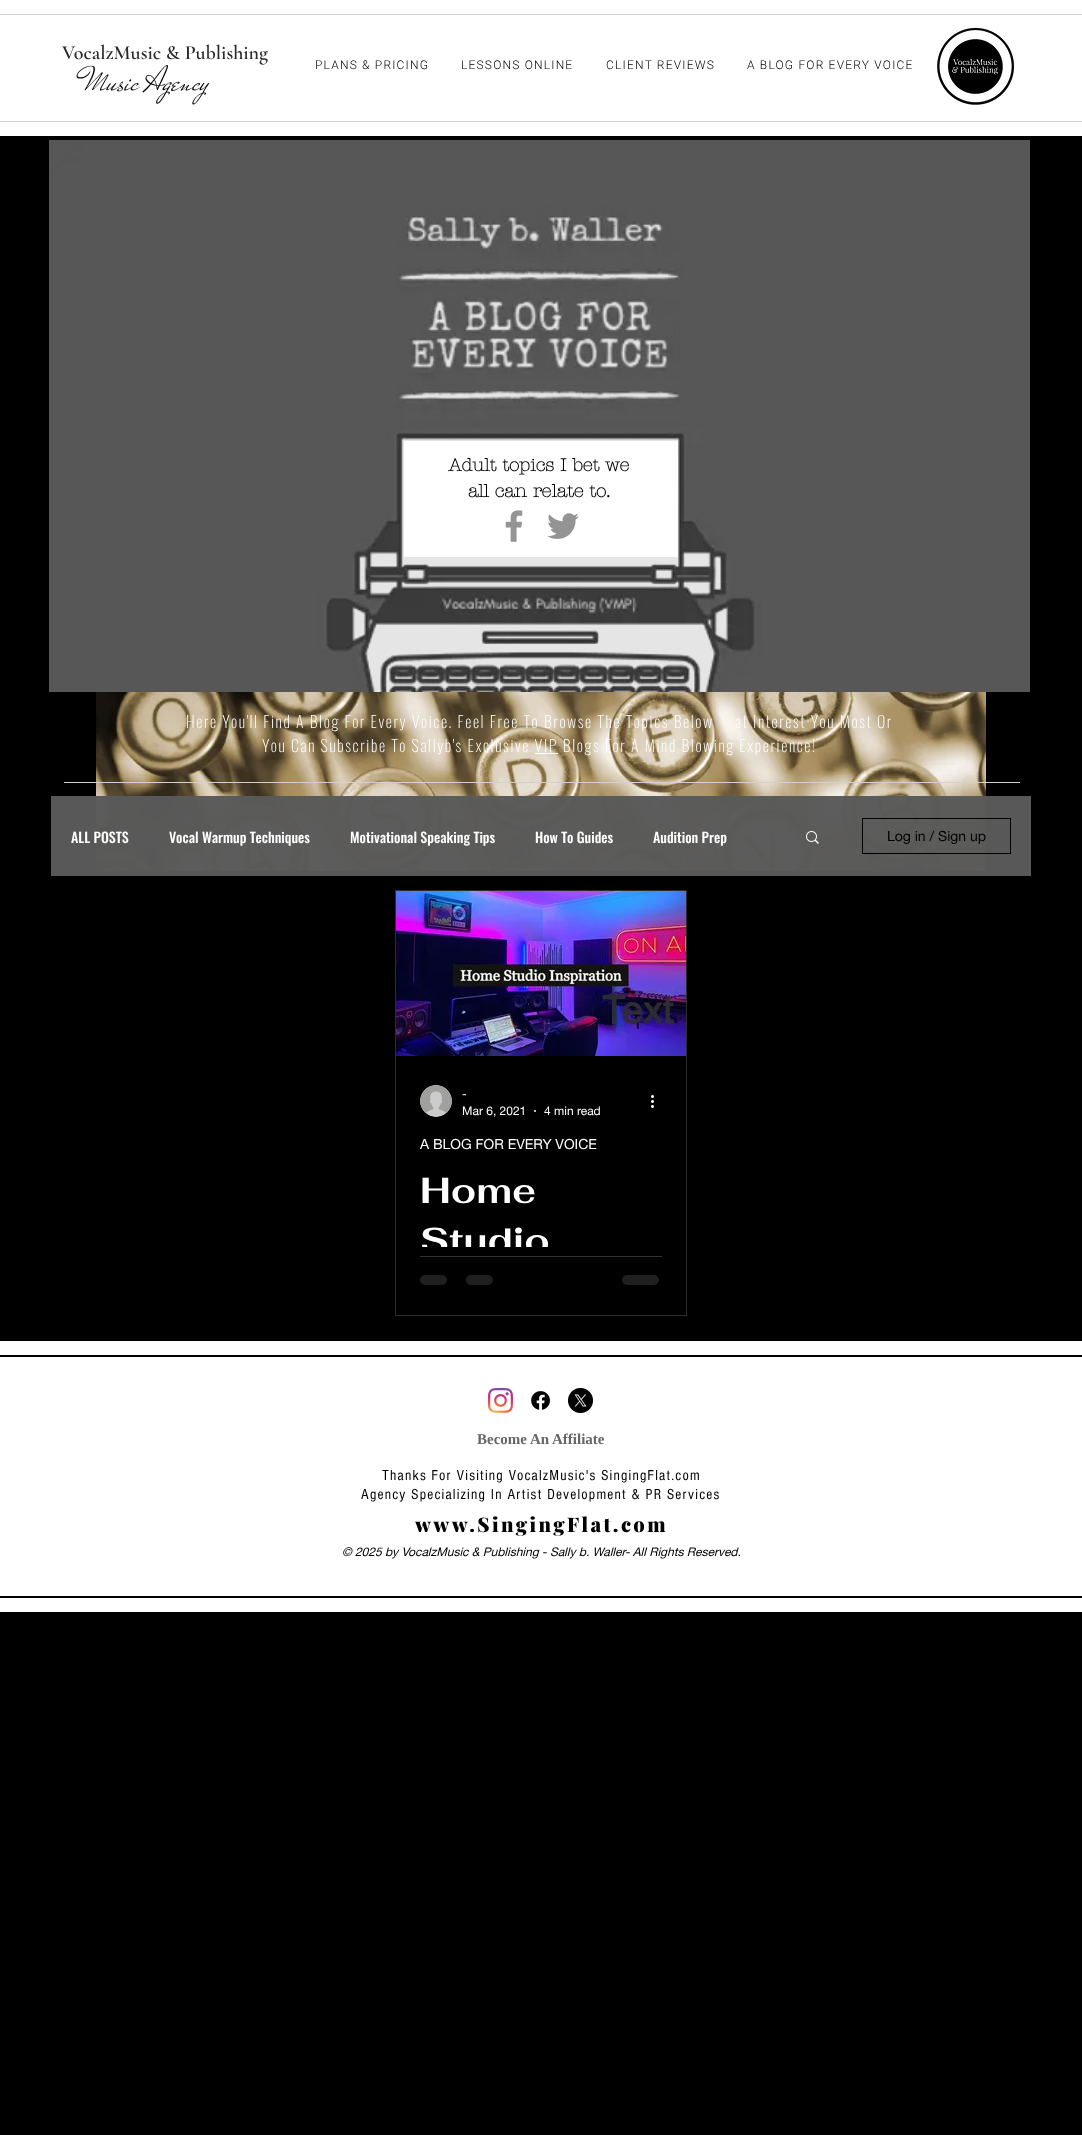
<!DOCTYPE html>
<meta charset="utf-8">
<style>body { margin: 0 } canvas { display: block }</style>
<canvas id="canvas" width="1082" height="2135"></canvas>
<script type="module">
  const canvas = document.getElementById("canvas");
  const ctx = canvas.getContext("2d");
  ctx.miterLimit = 4;
  ctx.fontKerning = "normal";
  async function loadImage(src) {
    const img = new Image();
    img.src = src;
    await img.decode();
    return img;
  }

  ctx.fillStyle = "#000000";
  ctx.fillRect(0, 0, 1082, 2135);
  ctx.fillStyle = "#ffffff";
  ctx.fillRect(0, 0, 1082, 136);
  ctx.fillStyle = "#d1d1d1";
  ctx.fillRect(0, 14, 1082, 1);
  ctx.fillRect(0, 121, 1082, 1);
  ctx.font = "600 20px Cormorant Garamond";
  ctx.fillStyle = "#292929";
  ctx.fillText("VocalzMusic & Publishing", 62, 59);
  ctx.font = "35px Mr De Haviland";
  ctx.fillStyle = "#000000";
  ctx.fillText("Music Agency", 85, 90);
  ctx.letterSpacing = "1.2px";
  ctx.font = "300 12px Heebo";
  ctx.fillText("PLANS & PRICING", 315, 69);
  ctx.fillText("LESSONS ONLINE", 461, 69);
  ctx.fillText("CLIENT REVIEWS", 606, 69);
  ctx.fillText("A BLOG FOR EVERY VOICE", 747, 69);
  ctx.drawImage(await loadImage("img1.png"), 937, 27, 78, 78);
  ctx.drawImage(await loadImage("img2.png"), 49, 140, 981, 552);
  ctx.fillStyle = "#ffffff";
  ctx.fillRect(404, 441, 274, 116);
  ctx.letterSpacing = "0px";
  ctx.font = "bold 18px 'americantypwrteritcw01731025'";
  ctx.fillStyle = "#000000";
  ctx.fillText("Adult topics I bet we", 448, 471);
  ctx.fillText("all can relate to.", 468, 497);
  ctx.drawImage(await loadImage("img3.png"), 505, 510, 18, 32);
  ctx.drawImage(await loadImage("img4.png"), 547, 513, 32, 26);
  ctx.drawImage(await loadImage("img9.png"), 96, 692, 890, 179);
  ctx.letterSpacing = "1.6px";
  ctx.font = "200 16px Oswald";
  ctx.fillStyle = "#ffffff";
  ctx.fillText("Here You'll Find A Blog For Every Voice. Feel Free To Browse The Topics Below", 186, 728);
  ctx.fillText("at Interest You Most Or", 735, 728);
  ctx.fillText("You Can Subscribe To Sallyb's Exclusive VIP Blogs For A Mind Blowing Experience!", 262, 752);
  ctx.fillRect(535, 753, 23, 1);
  ctx.fillStyle = "#d1d1d1";
  ctx.fillRect(64, 782, 956, 1);
  ctx.fillStyle = "rgba(0, 0, 0, 0.85)";
  ctx.fillRect(96, 796, 890, 75);
  ctx.fillStyle = "rgba(102, 102, 102, 0.86)";
  ctx.fillRect(51, 796, 980, 80);
  ctx.letterSpacing = "0px";
  ctx.font = "500 14px Oswald";
  ctx.fillStyle = "#ffffff";
  ctx.fillText("ALL POSTS", 71, 843);
  ctx.fillText("Vocal Warmup Techniques", 169, 843);
  ctx.fillText("Motivational Speaking Tips", 350, 843);
  ctx.fillText("How To Guides", 535, 843);
  ctx.fillText("Audition Prep", 653, 843);
  ctx.drawImage(await loadImage("img5.png"), 806, 831, 13, 13);
  ctx.strokeStyle = "#000000";
  ctx.strokeRect(862.5, 818.5, 148, 35);
  ctx.font = "14px helvetica neue";
  ctx.fillStyle = "#000000";
  ctx.fillText("Log in / Sign up", 887, 841);
  ctx.strokeStyle = "#2c2c2c";
  ctx.strokeRect(395.5, 890.5, 291, 425);
  ctx.drawImage(await loadImage("img6.png"), 396, 891, 290, 165);
  ctx.drawImage(await loadImage("img7.png"), 420, 1085, 32, 32);
  ctx.font = "12px helvetica neue";
  ctx.fillStyle = "#ffffff";
  ctx.fillText("-", 462, 1098);
  ctx.fillText("Mar 6, 2021", 462, 1115);
  ctx.beginPath();
  ctx.arc(535, 1111, 1, 0, Math.PI * 2);
  ctx.fill();
  ctx.fillText("4 min read", 544, 1115);
  ctx.drawImage(await loadImage("img8.png"), 651, 1095, 3, 13);
  ctx.font = "14px helvetica neue";
  ctx.fillText("A BLOG FOR EVERY VOICE", 420, 1149);
  ctx.font = "bold 36px Fahkwang";
  ctx.fillText("Home", 420, 1203);
  ctx.save();
  ctx.beginPath();
  ctx.rect(420, 1166, 242, 81);
  ctx.clip();
  ctx.fillText("Studio", 420, 1253);
  ctx.restore();
  ctx.fillStyle = "#333333";
  ctx.fillRect(420, 1256, 242, 1);
  ctx.fillStyle = "#1f1f1f";
  ctx.beginPath();
  ctx.roundRect(420, 1275, 27, 10, 5);
  ctx.fill();
  ctx.beginPath();
  ctx.roundRect(466, 1275, 27, 10, 5);
  ctx.fill();
  ctx.beginPath();
  ctx.roundRect(622, 1275, 37, 10, 5);
  ctx.fill();
  ctx.fillStyle = "#ffffff";
  ctx.fillRect(0, 1341, 1082, 271);
  ctx.fillStyle = "#000000";
  ctx.fillRect(0, 1355, 1082, 2);
  ctx.fillRect(0, 1596, 1082, 2);
  ctx.drawImage(await loadImage("img10.png"), 488, 1388, 25, 25);
  ctx.drawImage(await loadImage("img11.png"), 531, 1391, 20, 19);
  ctx.drawImage(await loadImage("img12.png"), 568, 1388, 25, 25);
  ctx.font = "bold 15px Liberation Serif";
  ctx.fillStyle = "#666666";
  ctx.fillText("Become An Affiliate", 477, 1444);
  ctx.letterSpacing = "1.2px";
  ctx.font = "15px 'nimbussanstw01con'";
  ctx.fillStyle = "#000000";
  ctx.fillText("Thanks For Visiting VocalzMusic's SingingFlat.com", 382, 1480);
  ctx.fillText("Agency Specializing In Artist Development & PR Services", 361, 1499);
  ctx.letterSpacing = "2.4px";
  ctx.font = "900 20px Playfair Display";
  ctx.fillText("www.SingingFlat.com", 415, 1532);
  ctx.letterSpacing = "0px";
  ctx.font = "italic 12px helvetica neue";
  ctx.fillText("© 2025 by VocalzMusic & Publishing - Sally b. Waller- All Rights Reserved.", 342, 1556);
</script>
